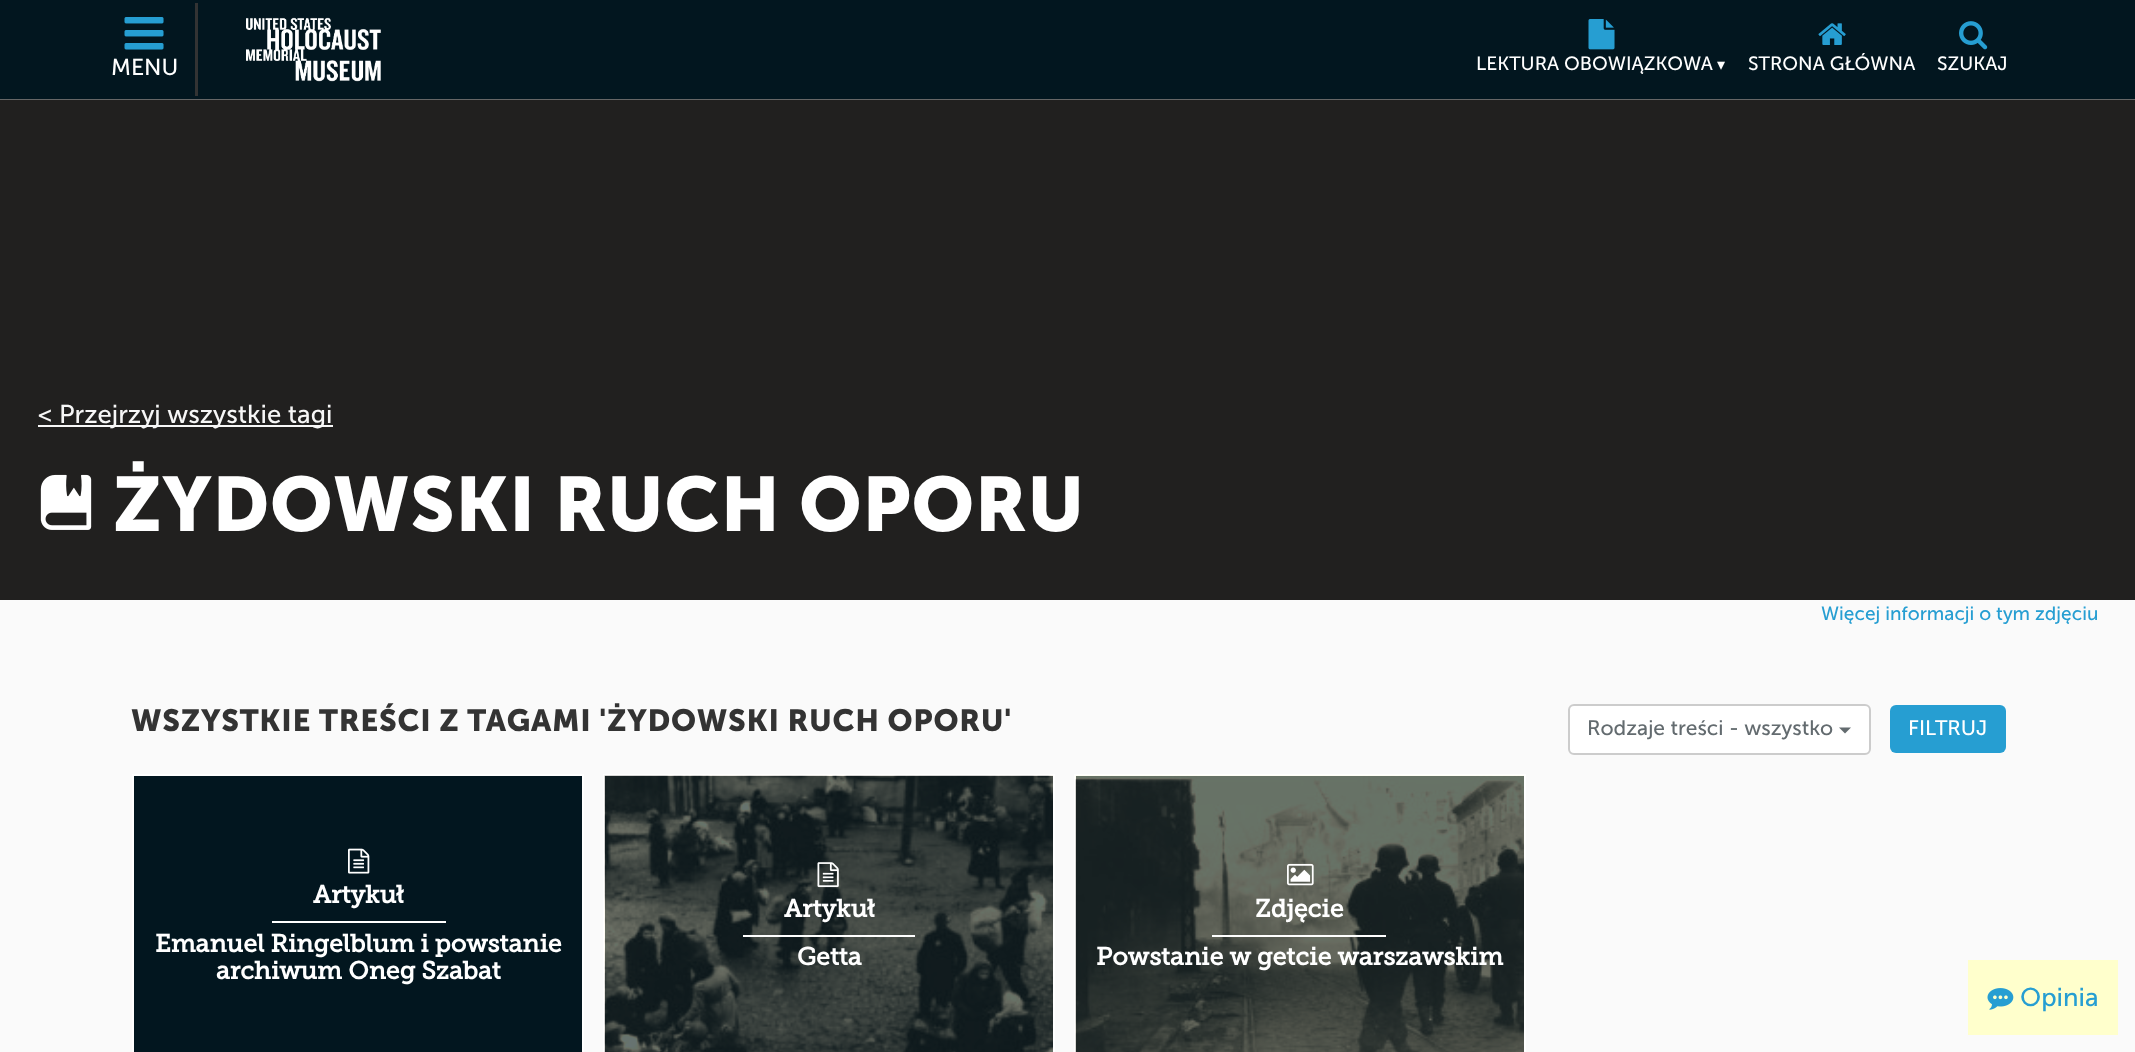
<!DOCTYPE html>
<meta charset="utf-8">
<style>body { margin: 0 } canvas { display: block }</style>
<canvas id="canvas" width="2135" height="1052"></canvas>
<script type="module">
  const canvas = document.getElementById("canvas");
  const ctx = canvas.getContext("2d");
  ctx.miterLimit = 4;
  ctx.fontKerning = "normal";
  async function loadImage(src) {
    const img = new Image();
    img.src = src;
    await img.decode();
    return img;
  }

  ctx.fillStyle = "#fafafa";
  ctx.fillRect(0, 0, 2135, 1052);
  ctx.fillStyle = "#666666";
  ctx.fillRect(0, 99, 2135, 1);
  ctx.fillStyle = "#02161f";
  ctx.fillRect(0, 0, 2135, 99);
  ctx.fillStyle = "#333333";
  ctx.fillRect(195, 3, 3, 93);
  ctx.drawImage(await loadImage("img1.png"), 124, 17, 40, 33);
  ctx.font = "23px 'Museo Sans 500'";
  ctx.fillStyle = "#ffffff";
  ctx.fillText("MENU", 111, 75);
  ctx.drawImage(await loadImage("img2.png"), 246, 17, 135, 65);
  ctx.drawImage(await loadImage("img3.png"), 1588, 19, 27, 31);
  ctx.font = "19.25px 'Museo Sans 500'";
  ctx.fillText("LEKTURA OBOWIĄZKOWA", 1476, 70);
  ctx.font = "16px DejaVu Sans";
  ctx.fillText("▾", 1717, 70);
  ctx.drawImage(await loadImage("img4.png"), 1818, 23, 28, 22);
  ctx.font = "19.25px 'Museo Sans 500'";
  ctx.fillText("STRONA GŁÓWNA", 1748, 70);
  ctx.drawImage(await loadImage("img5.png"), 1959, 21, 29, 29);
  ctx.fillText("SZUKAJ", 1937, 70);
  ctx.fillStyle = "#21201f";
  ctx.fillRect(0, 100, 2135, 500);
  ctx.fillStyle = "#f7f7f7";
  ctx.fillRect(38, 425, 295, 2);
  ctx.font = "25.75px 'Museo Sans 500'";
  ctx.fillText("< Przejrzyj wszystkie tagi", 38, 423);
  ctx.drawImage(await loadImage("img6.png"), 40, 474, 52, 56);
  ctx.letterSpacing = "0.75px";
  ctx.font = "bold 76.5px 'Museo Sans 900'";
  ctx.fillStyle = "#ffffff";
  ctx.fillText("ŻYDOWSKI RUCH OPORU", 113, 531);
  ctx.letterSpacing = "0px";
  ctx.font = "19.1px 'Museo Sans 500'";
  ctx.fillStyle = "#269ed2";
  ctx.fillText("Więcej informacji o tym zdjęciu", 1821, 620);
  ctx.letterSpacing = "0.75px";
  ctx.font = "bold 30.6px 'Museo Sans 900'";
  ctx.fillStyle = "#333333";
  ctx.fillText("WSZYSTKIE TREŚCI Z TAGAMI 'ŻYDOWSKI RUCH OPORU'", 131, 731);
  ctx.fillStyle = "#ffffff";
  ctx.beginPath();
  ctx.roundRect(1569, 705, 301, 49, 5);
  ctx.fill();
  ctx.strokeStyle = "#cccccc";
  ctx.lineWidth = 2;
  ctx.stroke();
  ctx.letterSpacing = "0px";
  ctx.font = "21px 'Museo Sans 500'";
  ctx.fillStyle = "#636b6f";
  ctx.fillText("Rodzaje treści - wszystko", 1587, 735);
  ctx.beginPath();
  ctx.moveTo(1839, 727.5);
  ctx.lineTo(1851, 727.5);
  ctx.lineTo(1845, 733.5);
  ctx.closePath();
  ctx.fill();
  ctx.fillStyle = "#269ed2";
  ctx.beginPath();
  ctx.roundRect(1890, 705, 116, 48, 6);
  ctx.fill();
  ctx.fillStyle = "#ffffff";
  ctx.fillText("FILTRUJ", 1908, 735);
  ctx.fillStyle = "#02161f";
  ctx.beginPath();
  ctx.rect(133, 775, 450, 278);
  ctx.fill();
  ctx.strokeStyle = "#ffffff";
  ctx.stroke();
  ctx.fillStyle = "#ffffff";
  ctx.fillRect(272, 921, 174, 2);
  ctx.drawImage(await loadImage("img7.png"), 348, 848, 22, 26);
  ctx.font = "bold 24.9px 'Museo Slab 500'";
  ctx.fillText("Artykuł", 313, 903);
  ctx.fillText("Emanuel Ringelblum i powstanie", 155, 952);
  ctx.fillText("archiwum Oneg Szabat", 216, 979);
  ctx.fillStyle = "#02161f";
  ctx.beginPath();
  ctx.rect(604, 775, 450, 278);
  ctx.fill();
  ctx.stroke();
  ctx.drawImage(await loadImage("img8.png"), 604, 775, 449, 277);
  ctx.fillStyle = "#ffffff";
  ctx.fillRect(743, 935, 172, 2);
  ctx.drawImage(await loadImage("img9.png"), 817, 862, 22, 26);
  ctx.fillText("Artykuł", 784, 917);
  ctx.fillText("Getta", 797, 965);
  ctx.fillStyle = "#02161f";
  ctx.beginPath();
  ctx.rect(1075, 775, 450, 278);
  ctx.fill();
  ctx.stroke();
  ctx.drawImage(await loadImage("img10.png"), 1075, 775, 449, 277);
  ctx.fillStyle = "#ffffff";
  ctx.fillRect(1212, 935, 174, 2);
  ctx.drawImage(await loadImage("img11.png"), 1287, 863, 27, 23);
  ctx.fillText("Zdjęcie", 1255, 917);
  ctx.fillText("Powstanie w getcie warszawskim", 1096, 965);
  ctx.fillStyle = "#ffffcc";
  ctx.fillRect(1968, 960, 150, 75);
  ctx.drawImage(await loadImage("img12.png"), 1987, 988, 27, 22);
  ctx.font = "25.75px 'Museo Sans 500'";
  ctx.fillStyle = "#269ed2";
  ctx.fillText("Opinia", 2020, 1006);
</script>
